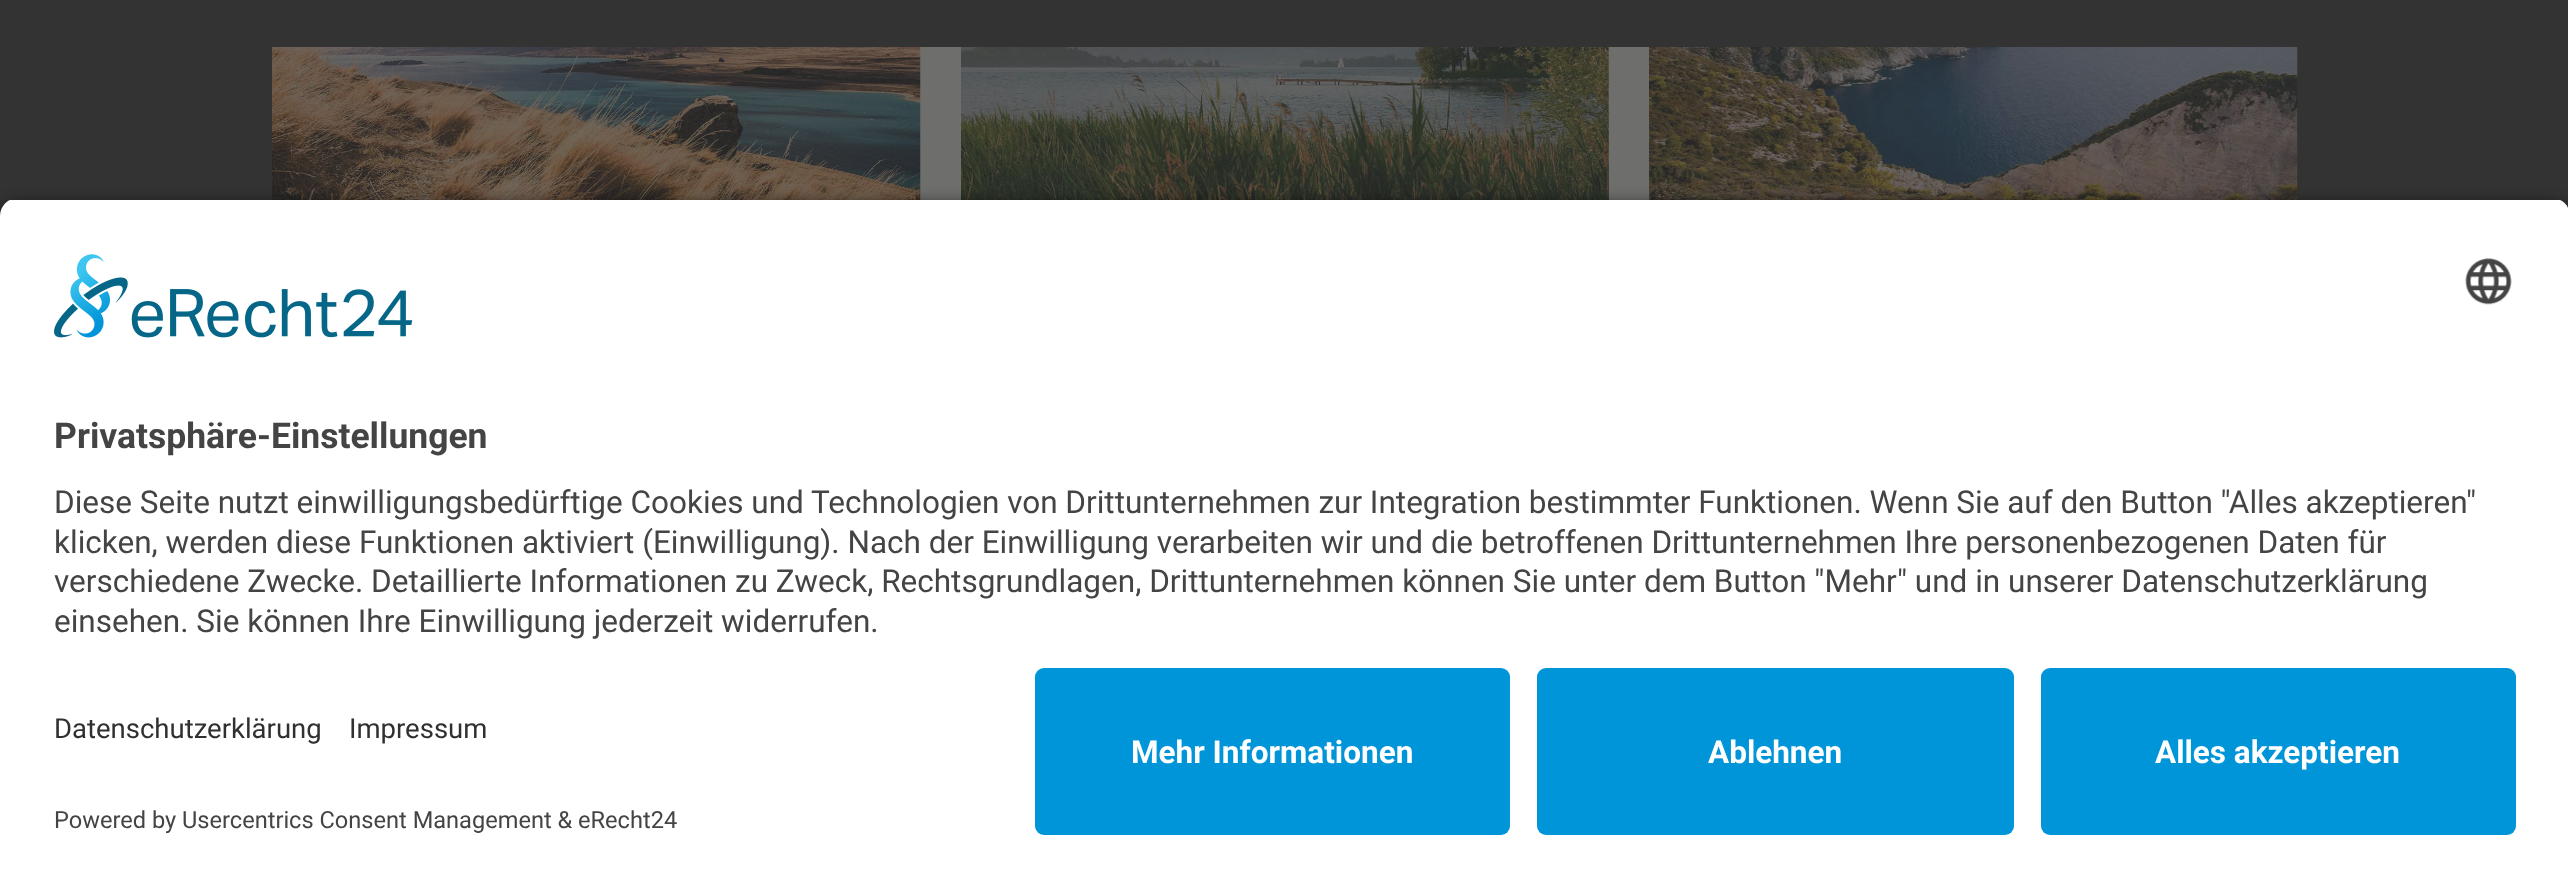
<!DOCTYPE html>
<meta charset="utf-8">
<style>body { margin: 0 } canvas { display: block }</style>
<canvas id="canvas" width="2568" height="888"></canvas>
<script type="module">
  const canvas = document.getElementById("canvas");
  const ctx = canvas.getContext("2d");
  ctx.miterLimit = 4;
  ctx.fontKerning = "normal";
  async function loadImage(src) {
    const img = new Image();
    img.src = src;
    await img.decode();
    return img;
  }

  ctx.fillStyle = "#333333";
  ctx.fillRect(0, 0, 2568, 888);
  ctx.fillStyle = "#6e6e6d";
  ctx.fillRect(920, 47, 729, 153);
  ctx.drawImage(await loadImage("img1.png"), 272, 47, 649, 153);
  ctx.drawImage(await loadImage("img2.png"), 961, 47, 648, 153);
  ctx.drawImage(await loadImage("img3.png"), 1649, 47, 649, 153);
  ctx.fillStyle = "rgba(0, 0, 0, 0.8)";
  ctx.filter = "blur(8px)";
  ctx.beginPath();
  ctx.roundRect(0, 205, 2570, 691, 18);
  ctx.fill();
  ctx.filter = "none";
  ctx.save();
  ctx.beginPath();
  ctx.moveTo(18, 198);
  ctx.lineTo(2552, 198);
  ctx.bezierCurveTo(2562, 198, 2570, 206, 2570, 216);
  ctx.lineTo(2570, 650);
  ctx.lineTo(0, 650);
  ctx.lineTo(0, 216);
  ctx.bezierCurveTo(0, 206, 8, 198, 18, 198);
  ctx.closePath();
  ctx.clip();
  ctx.fillStyle = "#ffffff";
  ctx.fillRect(0, 200, 2568, 450);
  ctx.restore();
  ctx.drawImage(await loadImage("img4.png"), 54, 254, 359, 84);
  ctx.drawImage(await loadImage("img5.png"), 2465, 258, 47, 47);
  ctx.font = "bold 35.5px Roboto";
  ctx.fillStyle = "#444444";
  ctx.fillText("Privatsphäre-Einstellungen", 54, 448);
  ctx.font = "31.5px Roboto";
  ctx.fillText("Diese Seite nutzt einwilligungsbedürftige Cookies und Technologien von Drittunternehmen zur Integration bestimmter Funktionen. Wenn Sie auf den Button \"Alles akzeptieren\"", 54, 513);
  ctx.fillText("klicken, werden diese Funktionen aktiviert (Einwilligung). Nach der Einwilligung verarbeiten wir und die betroffenen Drittunternehmen Ihre personenbezogenen Daten für", 54, 553);
  ctx.fillText("verschiedene Zwecke. Detaillierte Informationen zu Zweck, Rechtsgrundlagen, Drittunternehmen können Sie unter dem Button \"Mehr\" und in unserer Datenschutzerklärung", 54, 592);
  ctx.fillText("einsehen. Sie können Ihre Einwilligung jederzeit widerrufen.", 54, 632);
  ctx.fillStyle = "#ffffff";
  ctx.fillRect(0, 650, 2568, 238);
  ctx.font = "27.5px Roboto";
  ctx.fillStyle = "#303030";
  ctx.fillText("Datenschutzerklärung", 54, 738);
  ctx.fillText("Impressum", 349, 738);
  ctx.font = "23.6px Roboto";
  ctx.fillStyle = "#444444";
  ctx.fillText("Powered by Usercentrics Consent Management & eRecht24", 54, 828);
  ctx.fillStyle = "#0094d8";
  ctx.beginPath();
  ctx.roundRect(1035, 668, 475, 167, 9);
  ctx.fill();
  ctx.font = "bold 31.5px Roboto";
  ctx.fillStyle = "#ffffff";
  ctx.fillText("Mehr Informationen", 1131, 763);
  ctx.fillStyle = "#0094d8";
  ctx.beginPath();
  ctx.roundRect(1537, 668, 477, 167, 9);
  ctx.fill();
  ctx.fillStyle = "#ffffff";
  ctx.fillText("Ablehnen", 1708, 763);
  ctx.fillStyle = "#0094d8";
  ctx.beginPath();
  ctx.roundRect(2041, 668, 475, 167, 9);
  ctx.fill();
  ctx.fillStyle = "#ffffff";
  ctx.fillText("Alles akzeptieren", 2155, 763);
</script>
